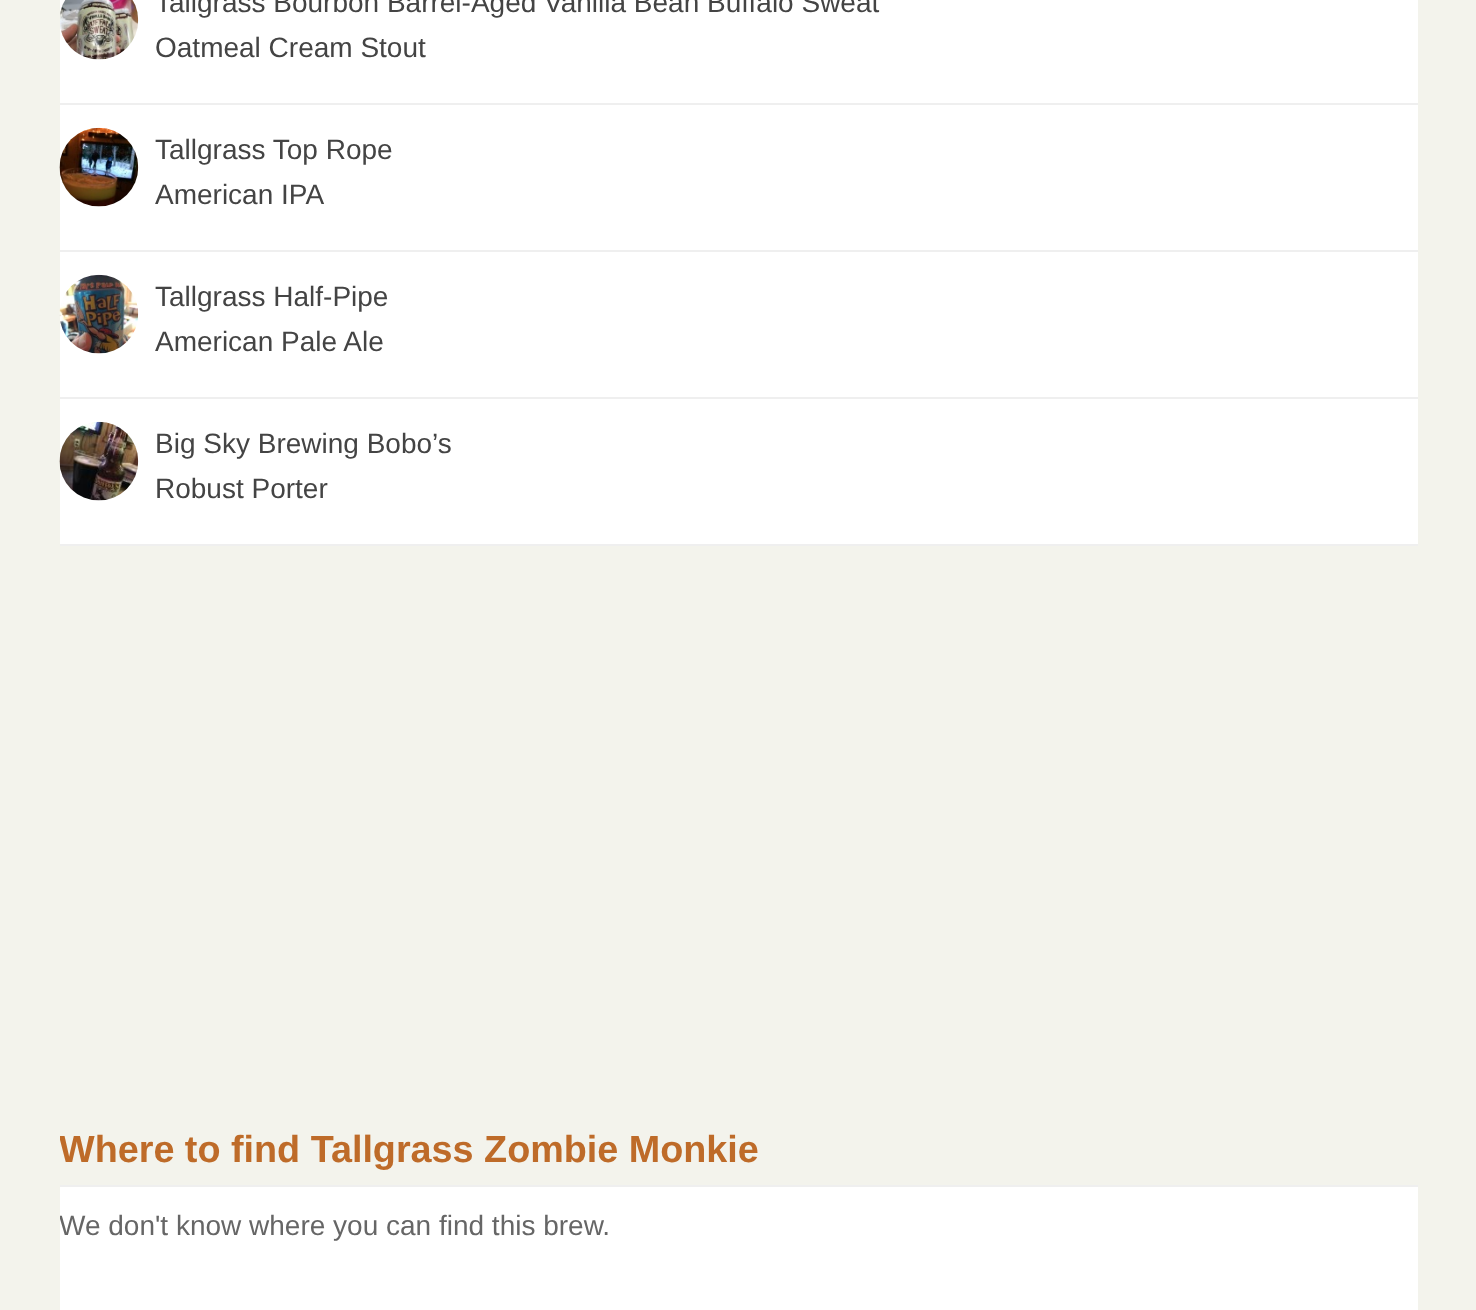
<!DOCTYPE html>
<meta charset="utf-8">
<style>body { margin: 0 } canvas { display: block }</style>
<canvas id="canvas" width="1476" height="1310"></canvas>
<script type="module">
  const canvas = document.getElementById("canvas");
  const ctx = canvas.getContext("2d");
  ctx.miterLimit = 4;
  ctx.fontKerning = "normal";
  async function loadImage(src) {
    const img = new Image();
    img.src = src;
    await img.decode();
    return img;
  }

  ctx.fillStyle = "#f3f3ec";
  ctx.fillRect(0, 0, 1476, 1310);
  ctx.fillStyle = "#ffffff";
  ctx.fillRect(60, 0, 1358, 103);
  ctx.fillStyle = "#efefef";
  ctx.fillRect(60, 103, 1358, 2);
  ctx.drawImage(await loadImage("img1.png"), 60, 0, 79, 60);
  ctx.font = "28px Liberation Sans";
  ctx.fillStyle = "#444444";
  ctx.fillText("Tallgrass Bourbon Barrel-Aged Vanilla Bean Buffalo Sweat", 155, 12);
  ctx.fillText("Oatmeal Cream Stout", 155, 57);
  ctx.fillStyle = "#ffffff";
  ctx.fillRect(60, 105, 1358, 145);
  ctx.fillStyle = "#efefef";
  ctx.fillRect(60, 250, 1358, 2);
  ctx.drawImage(await loadImage("img2.png"), 59, 127, 80, 80);
  ctx.fillStyle = "#444444";
  ctx.fillText("Tallgrass Top Rope", 155, 159);
  ctx.fillText("American IPA", 155, 204);
  ctx.fillStyle = "#ffffff";
  ctx.fillRect(60, 252, 1358, 145);
  ctx.fillStyle = "#efefef";
  ctx.fillRect(60, 397, 1358, 2);
  ctx.drawImage(await loadImage("img3.png"), 59, 274, 80, 80);
  ctx.fillStyle = "#444444";
  ctx.fillText("Tallgrass Half-Pipe", 155, 306);
  ctx.fillText("American Pale Ale", 155, 351);
  ctx.fillStyle = "#ffffff";
  ctx.fillRect(60, 399, 1358, 145);
  ctx.fillStyle = "#efefef";
  ctx.fillRect(60, 544, 1358, 2);
  ctx.drawImage(await loadImage("img4.png"), 59, 421, 80, 80);
  ctx.fillStyle = "#444444";
  ctx.fillText("Big Sky Brewing Bobo’s", 155, 453);
  ctx.fillText("Robust Porter", 155, 498);
  ctx.fillStyle = "#efefef";
  ctx.fillRect(60, 1185, 1358, 2);
  ctx.save();
  ctx.beginPath();
  ctx.rect(60, 1115, 1358, 70);
  ctx.clip();
  ctx.font = "bold 37.75px Liberation Sans";
  ctx.fillStyle = "#be6b29";
  ctx.fillText("Where to find Tallgrass Zombie Monkie", 59, 1162);
  ctx.restore();
  ctx.fillStyle = "#ffffff";
  ctx.fillRect(60, 1187, 1358, 123);
  ctx.save();
  ctx.beginPath();
  ctx.rect(60, 1187, 1358, 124);
  ctx.clip();
  ctx.fillStyle = "#666666";
  ctx.fillText("We don't know where you can find this brew.", 59, 1235);
  ctx.restore();
</script>
